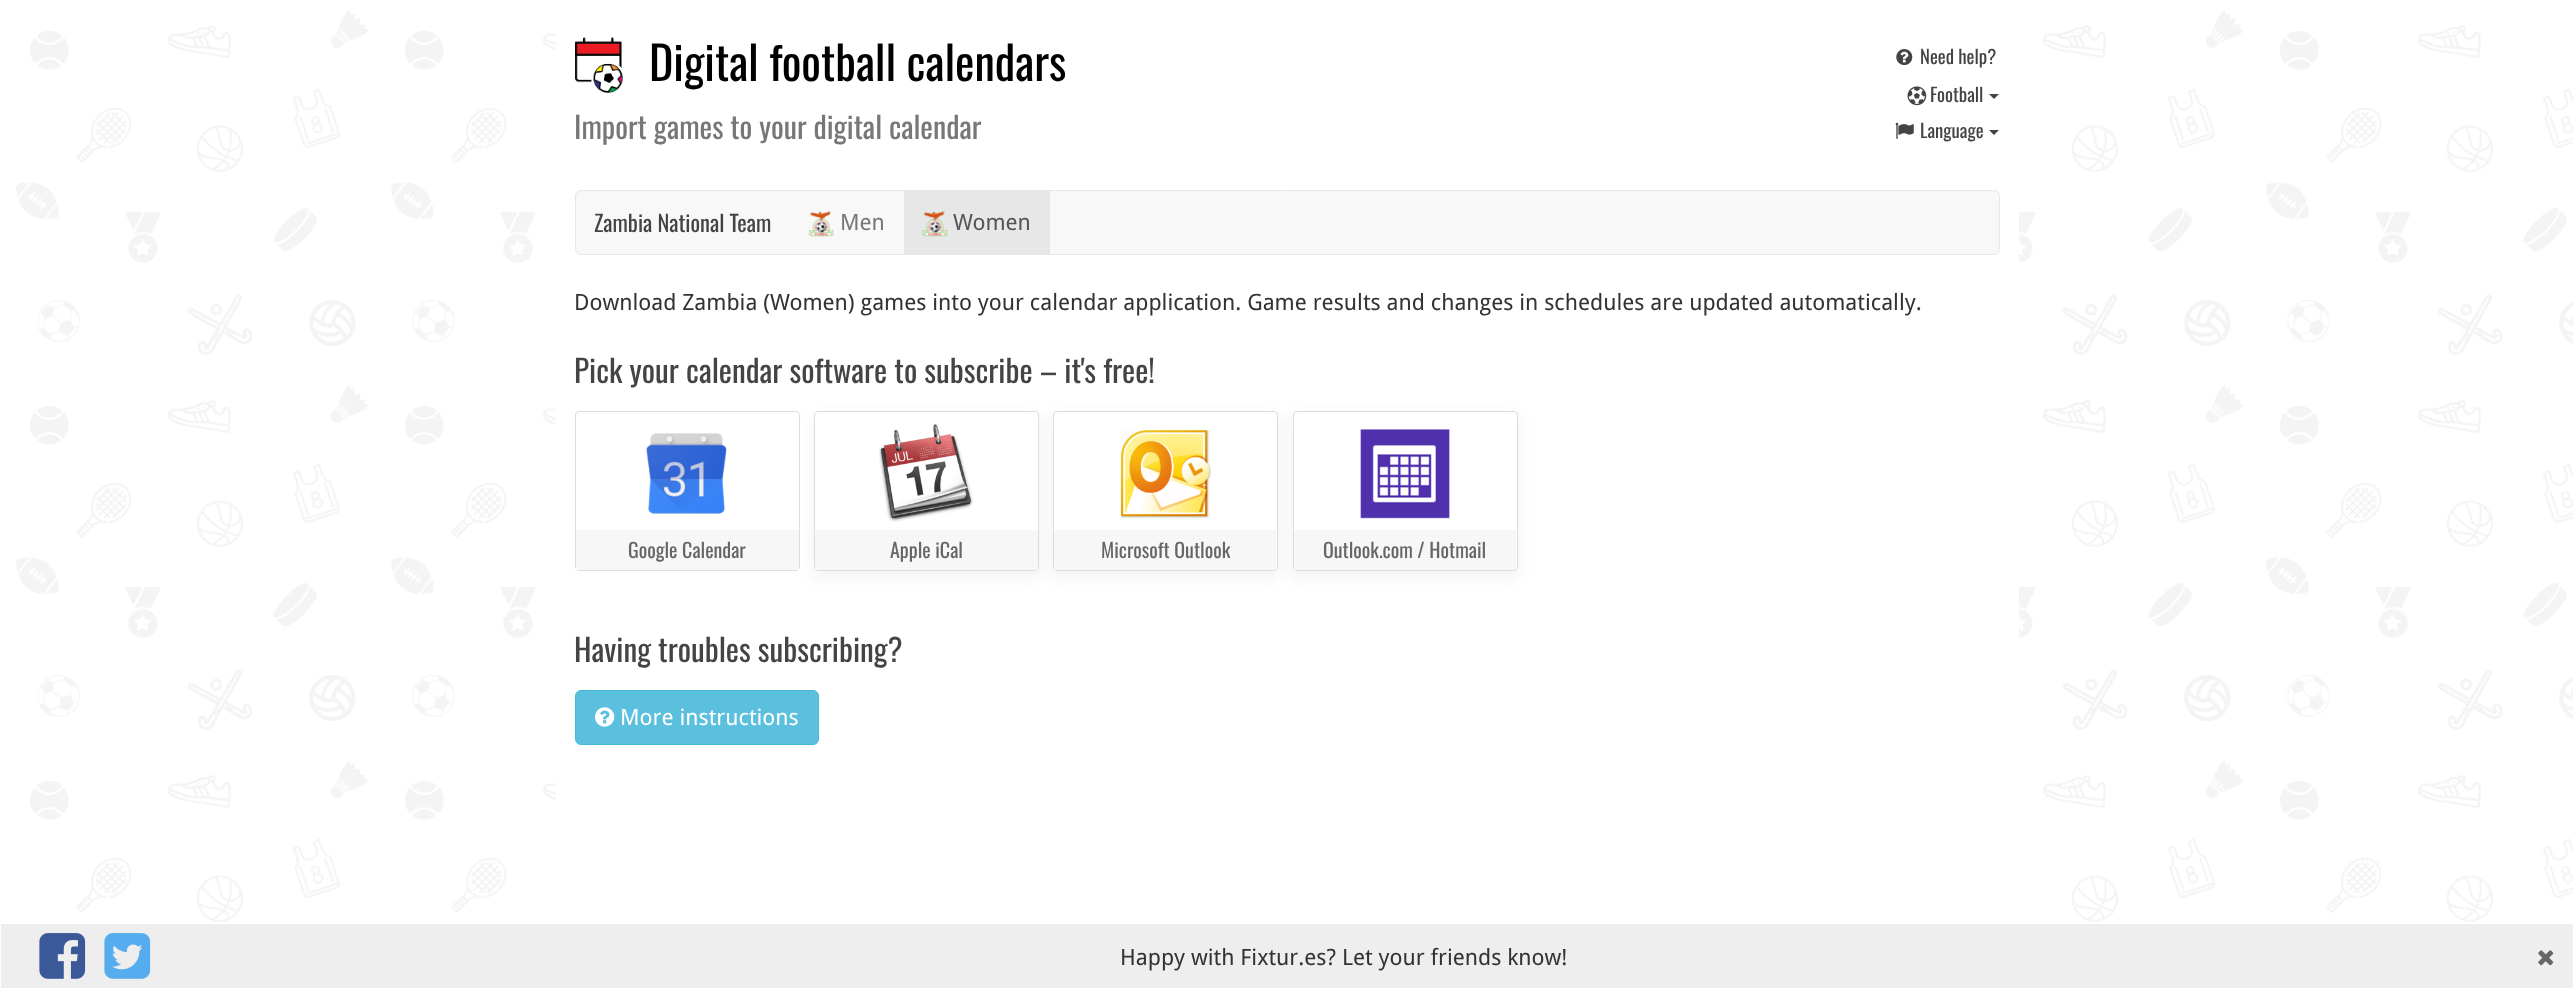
<!DOCTYPE html>
<meta charset="utf-8">
<style>body { margin: 0 } canvas { display: block }</style>
<canvas id="canvas" width="2573" height="988"></canvas>
<script type="module">
  const canvas = document.getElementById("canvas");
  const ctx = canvas.getContext("2d");
  ctx.miterLimit = 4;
  ctx.fontKerning = "normal";
  async function loadImage(src) {
    const img = new Image();
    img.src = src;
    await img.decode();
    return img;
  }

  ctx.fillStyle = "#ffffff";
  ctx.fillRect(0, 0, 2573, 988);
  ctx.drawImage(await loadImage("img1.png"), 16, 10, 2557, 913);
  ctx.fillRect(556, 10, 1463, 912);
  ctx.drawImage(await loadImage("img2.png"), 575, 37, 48, 56);
  ctx.font = "46.25px Oswald";
  ctx.fillStyle = "#000000";
  ctx.fillText("Digital football calendars", 649, 81);
  ctx.font = "30px Oswald";
  ctx.fillStyle = "#777777";
  ctx.fillText("Import games to your digital calendar", 574, 139);
  ctx.drawImage(await loadImage("img3.png"), 1896, 49, 17, 17);
  ctx.font = "18.75px Oswald";
  ctx.fillStyle = "#444444";
  ctx.fillText("Need help?", 1920, 64);
  ctx.drawImage(await loadImage("img4.png"), 1907, 86, 20, 20);
  ctx.fillText("Football", 1930, 102);
  ctx.beginPath();
  ctx.moveTo(1989, 94);
  ctx.lineTo(1999, 94);
  ctx.lineTo(1994, 99);
  ctx.closePath();
  ctx.fill();
  ctx.drawImage(await loadImage("img5.png"), 1895, 122, 19, 17);
  ctx.fillText("Language", 1920, 138);
  ctx.beginPath();
  ctx.moveTo(1989, 130);
  ctx.lineTo(1999, 130);
  ctx.lineTo(1994, 135);
  ctx.closePath();
  ctx.fill();
  ctx.fillStyle = "#f8f8f8";
  ctx.beginPath();
  ctx.roundRect(575.5, 190.5, 1424, 64, 5.5);
  ctx.fill();
  ctx.strokeStyle = "#e7e7e7";
  ctx.stroke();
  ctx.font = "22.5px Oswald";
  ctx.fillStyle = "#444444";
  ctx.fillText("Zambia National Team", 594, 232);
  ctx.drawImage(await loadImage("img6.png"), 808, 211, 26, 26);
  ctx.font = "22.5px Droid Sans";
  ctx.fillStyle = "#777777";
  ctx.fillText("Men", 840, 230);
  ctx.fillStyle = "#e7e7e7";
  ctx.fillRect(904, 191, 146, 63);
  ctx.drawImage(await loadImage("img7.png"), 922, 211, 26, 26);
  ctx.fillStyle = "#555555";
  ctx.fillText("Women", 953, 230);
  ctx.fillStyle = "#333333";
  ctx.fillText("Download Zambia (Women) games into your calendar application. Game results and changes in schedules are updated automatically.", 574, 310);
  ctx.font = "31.25px Oswald";
  ctx.fillStyle = "#444444";
  ctx.fillText("Pick your calendar software to subscribe – it's free!", 574, 383);
  ctx.beginPath();
  ctx.roundRect(575.5, 411.5, 224, 159, 3.5);
  ctx.strokeStyle = "#dddddd";
  ctx.stroke();
  ctx.drawImage(await loadImage("img8.png"), 646, 433, 81, 81);
  ctx.fillStyle = "rgba(0, 0, 0, 0.05)";
  ctx.filter = "blur(7.5px)";
  ctx.beginPath();
  ctx.roundRect(813, 415, 227, 163, 5);
  ctx.fill();
  ctx.filter = "none";
  ctx.fillStyle = "#f7f7f7";
  ctx.fillRect(576, 530, 223, 40);
  ctx.font = "20px Oswald";
  ctx.fillStyle = "#666666";
  ctx.fillText("Google Calendar", 628, 558);
  ctx.fillStyle = "#ffffff";
  ctx.beginPath();
  ctx.roundRect(814.5, 411.5, 224, 159, 3.5);
  ctx.fill();
  ctx.stroke();
  ctx.drawImage(await loadImage("img9.png"), 879, 424, 94, 98);
  ctx.fillStyle = "rgba(0, 0, 0, 0.05)";
  ctx.filter = "blur(7.5px)";
  ctx.beginPath();
  ctx.roundRect(1051, 415, 228, 163, 5);
  ctx.fill();
  ctx.filter = "none";
  ctx.fillStyle = "#f7f7f7";
  ctx.fillRect(815, 530, 223, 40);
  ctx.fillStyle = "#666666";
  ctx.fillText("Apple iCal", 890, 558);
  ctx.fillStyle = "#ffffff";
  ctx.beginPath();
  ctx.roundRect(1053.5, 411.5, 224, 159, 3.5);
  ctx.fill();
  ctx.stroke();
  ctx.drawImage(await loadImage("img10.png"), 1120, 430, 91, 88);
  ctx.fillStyle = "rgba(0, 0, 0, 0.05)";
  ctx.filter = "blur(7.5px)";
  ctx.beginPath();
  ctx.roundRect(1291, 415, 228, 163, 5);
  ctx.fill();
  ctx.filter = "none";
  ctx.fillStyle = "#f7f7f7";
  ctx.fillRect(1054, 530, 222, 40);
  ctx.fillStyle = "#666666";
  ctx.fillText("Microsoft Outlook", 1101, 558);
  ctx.fillStyle = "#ffffff";
  ctx.beginPath();
  ctx.roundRect(1293.5, 411.5, 224, 159, 3.5);
  ctx.fill();
  ctx.stroke();
  ctx.drawImage(await loadImage("img11.png"), 1360, 429, 90, 90);
  ctx.fillStyle = "#f7f7f7";
  ctx.fillRect(1294, 530, 222, 40);
  ctx.fillStyle = "#666666";
  ctx.fillText("Outlook.com / Hotmail", 1323, 558);
  ctx.font = "31.25px Oswald";
  ctx.fillStyle = "#444444";
  ctx.fillText("Having troubles subscribing?", 574, 662);
  ctx.fillStyle = "#5bc0de";
  ctx.beginPath();
  ctx.roundRect(575.5, 690.5, 243, 54, 5.5);
  ctx.fill();
  ctx.strokeStyle = "#46b8da";
  ctx.stroke();
  ctx.drawImage(await loadImage("img12.png"), 595, 707, 20, 20);
  ctx.font = "22.5px Droid Sans";
  ctx.fillStyle = "#ffffff";
  ctx.fillText("More instructions", 620, 725);
  ctx.fillStyle = "#eeeeee";
  ctx.fillRect(1, 924, 2572, 64);
  ctx.drawImage(await loadImage("img13.png"), 39, 933, 47, 46);
  ctx.drawImage(await loadImage("img14.png"), 104, 933, 47, 46);
  ctx.fillStyle = "#333333";
  ctx.fillText("Happy with Fixtur.es? Let your friends know!", 1120, 965);
  ctx.drawImage(await loadImage("img15.png"), 2538, 950, 16, 16);
</script>
